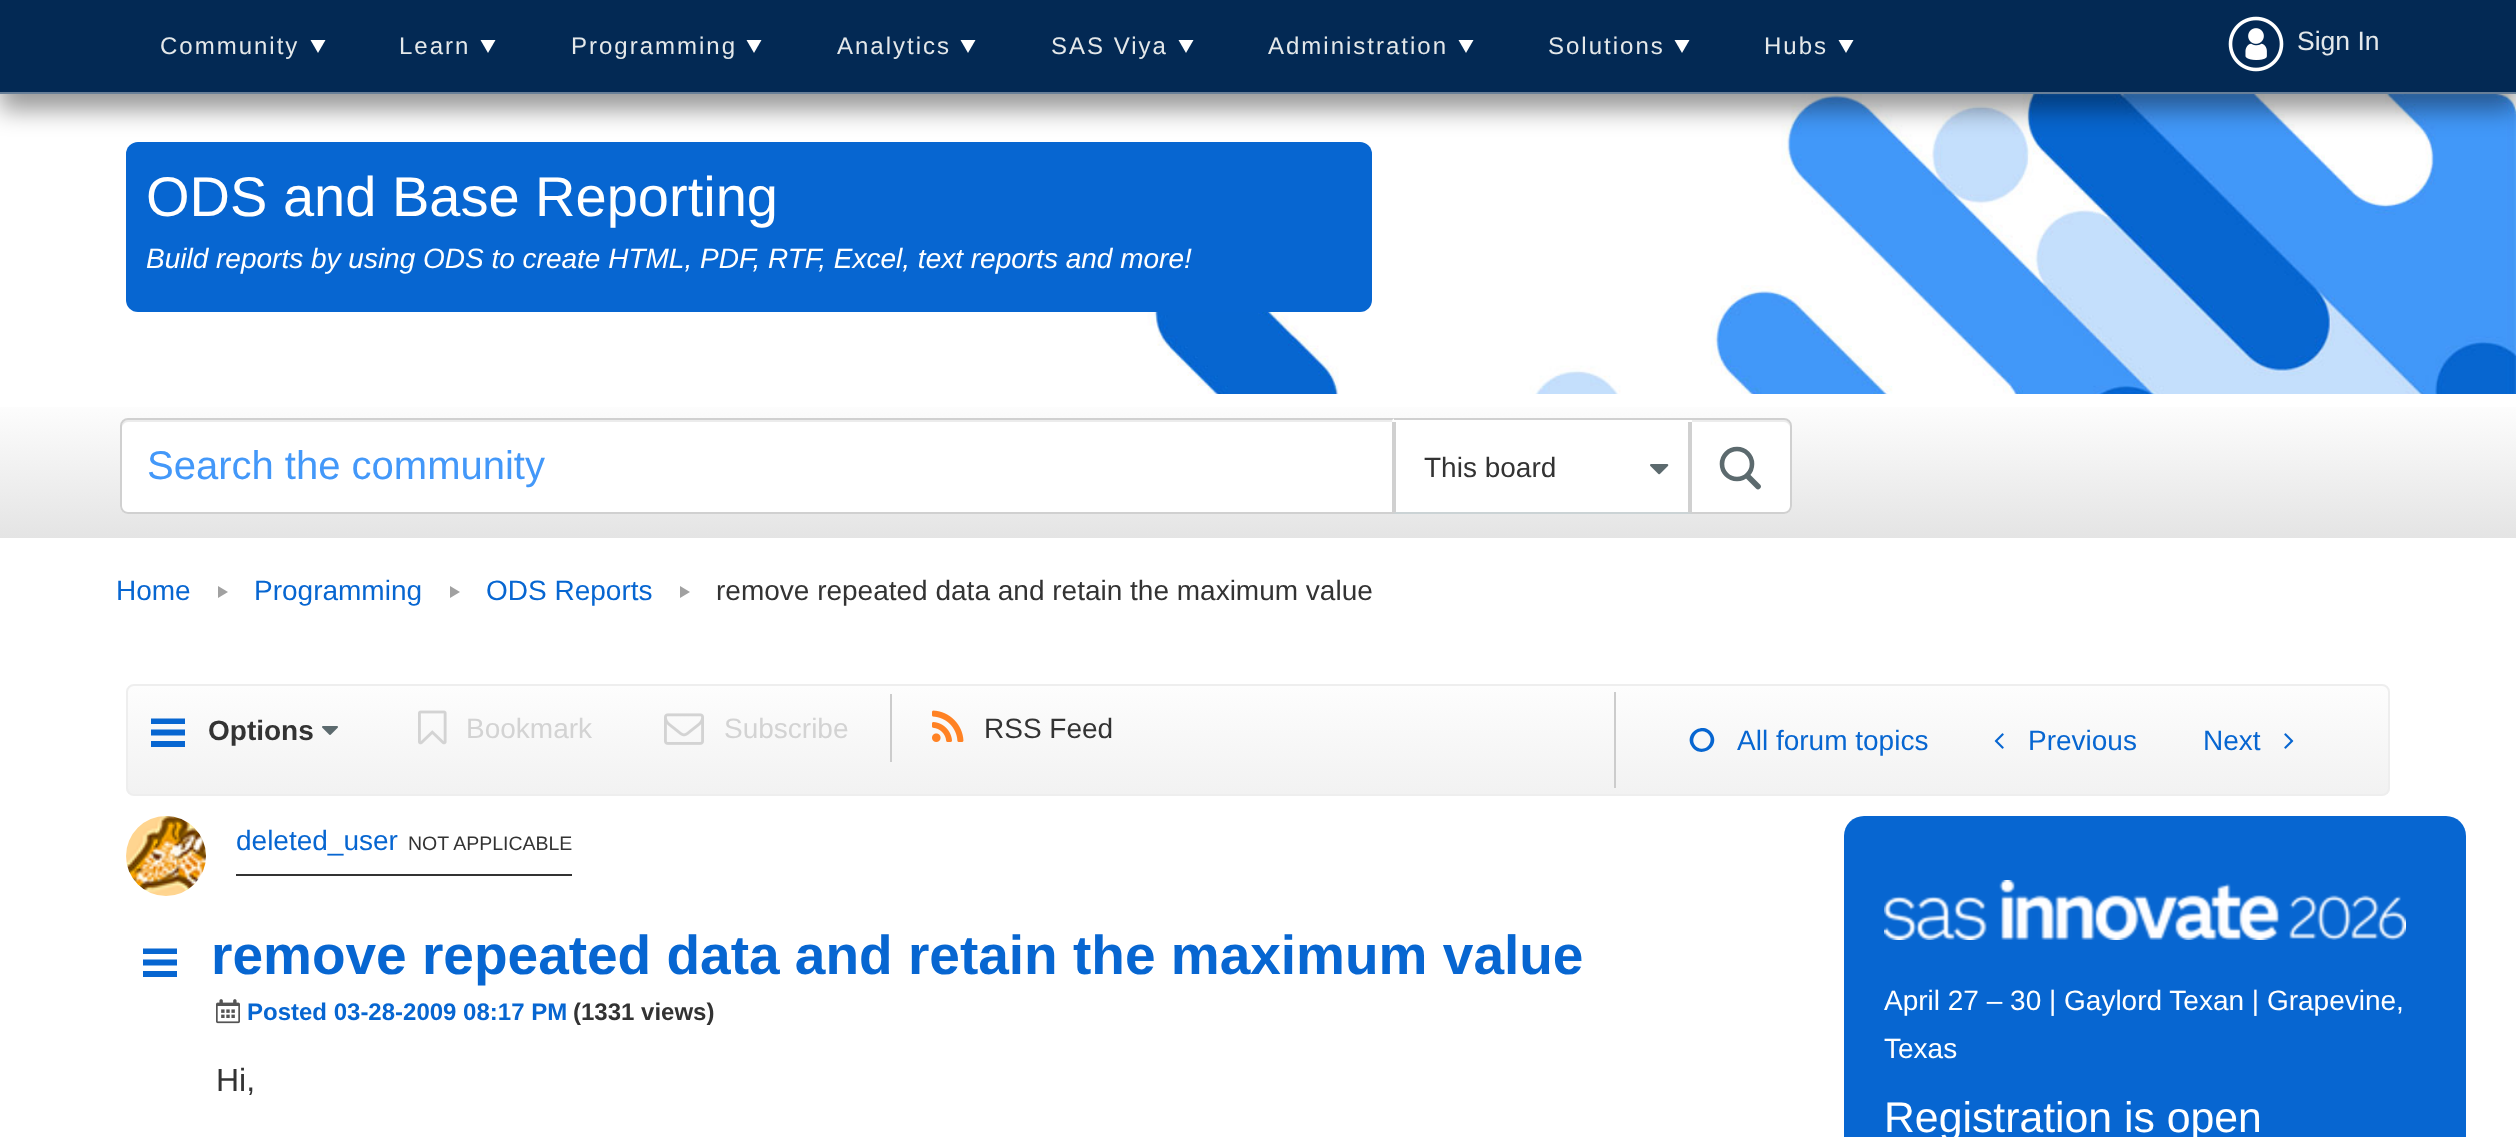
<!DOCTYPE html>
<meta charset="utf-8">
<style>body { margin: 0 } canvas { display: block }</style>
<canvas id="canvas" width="2516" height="1137"></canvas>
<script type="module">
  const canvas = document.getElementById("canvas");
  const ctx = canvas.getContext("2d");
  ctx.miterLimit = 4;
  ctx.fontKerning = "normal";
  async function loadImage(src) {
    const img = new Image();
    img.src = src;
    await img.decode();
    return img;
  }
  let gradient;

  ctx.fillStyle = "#ffffff";
  ctx.fillRect(0, 0, 2516, 1137);
  ctx.drawImage(await loadImage("img2.png"), 1147, 94, 1369, 300);
  ctx.fillStyle = "rgba(0, 0, 0, 0.4)";
  ctx.filter = "blur(12px)";
  ctx.beginPath();
  ctx.rect(0, 16, 2516, 94);
  ctx.fill();
  ctx.filter = "none";
  ctx.fillStyle = "#032954";
  ctx.fillRect(0, 0, 2516, 92);
  ctx.fillStyle = "#687f98";
  ctx.fillRect(0, 92, 2516, 2);
  ctx.letterSpacing = "2px";
  ctx.font = "24px Liberation Sans";
  ctx.fillStyle = "#e4e8ea";
  ctx.fillText("Community", 160, 54);
  ctx.fillStyle = "#ffffff";
  ctx.beginPath();
  ctx.moveTo(318, 53);
  ctx.lineTo(310.5, 40);
  ctx.lineTo(325.5, 40);
  ctx.closePath();
  ctx.fill();
  ctx.fillStyle = "#e4e8ea";
  ctx.fillText("Learn", 399, 54);
  ctx.fillStyle = "#ffffff";
  ctx.beginPath();
  ctx.moveTo(488, 53);
  ctx.lineTo(480.5, 40);
  ctx.lineTo(495.5, 40);
  ctx.closePath();
  ctx.fill();
  ctx.fillStyle = "#e4e8ea";
  ctx.fillText("Programming", 571, 54);
  ctx.fillStyle = "#ffffff";
  ctx.beginPath();
  ctx.moveTo(754, 53);
  ctx.lineTo(746.5, 40);
  ctx.lineTo(761.5, 40);
  ctx.closePath();
  ctx.fill();
  ctx.fillStyle = "#e4e8ea";
  ctx.fillText("Analytics", 837, 54);
  ctx.fillStyle = "#ffffff";
  ctx.beginPath();
  ctx.moveTo(968, 53);
  ctx.lineTo(960.5, 40);
  ctx.lineTo(975.5, 40);
  ctx.closePath();
  ctx.fill();
  ctx.fillStyle = "#e4e8ea";
  ctx.fillText("SAS Viya", 1051, 54);
  ctx.fillStyle = "#ffffff";
  ctx.beginPath();
  ctx.moveTo(1186, 53);
  ctx.lineTo(1178.5, 40);
  ctx.lineTo(1193.5, 40);
  ctx.closePath();
  ctx.fill();
  ctx.fillStyle = "#e4e8ea";
  ctx.fillText("Administration", 1268, 54);
  ctx.fillStyle = "#ffffff";
  ctx.beginPath();
  ctx.moveTo(1466, 53);
  ctx.lineTo(1458.5, 40);
  ctx.lineTo(1473.5, 40);
  ctx.closePath();
  ctx.fill();
  ctx.fillStyle = "#e4e8ea";
  ctx.fillText("Solutions", 1548, 54);
  ctx.fillStyle = "#ffffff";
  ctx.beginPath();
  ctx.moveTo(1682, 53);
  ctx.lineTo(1674.5, 40);
  ctx.lineTo(1689.5, 40);
  ctx.closePath();
  ctx.fill();
  ctx.fillStyle = "#e4e8ea";
  ctx.fillText("Hubs", 1764, 54);
  ctx.fillStyle = "#ffffff";
  ctx.beginPath();
  ctx.moveTo(1846, 53);
  ctx.lineTo(1838.5, 40);
  ctx.lineTo(1853.5, 40);
  ctx.closePath();
  ctx.fill();
  ctx.drawImage(await loadImage("img1.png"), 2228, 16, 56, 56);
  ctx.letterSpacing = "0px";
  ctx.font = "26.5px Liberation Sans";
  ctx.fillStyle = "#e4e8ea";
  ctx.fillText("Sign In", 2297, 50);
  ctx.fillStyle = "#0766d1";
  ctx.beginPath();
  ctx.roundRect(126, 142, 1246, 170, 12);
  ctx.fill();
  ctx.font = "56px Liberation Sans";
  ctx.fillStyle = "#ffffff";
  ctx.fillText("ODS and Base Reporting", 146, 216);
  ctx.font = "italic 28px Liberation Sans";
  ctx.fillText("Build reports by using ODS to create HTML, PDF, RTF, Excel, text reports and more!", 146, 268);
  gradient = ctx.createLinearGradient(1258, 394, 1258, 538);
  gradient.addColorStop(0, "#ffffff");
  gradient.addColorStop(1, "#e4e4e4");
  ctx.fillStyle = gradient;
  ctx.fillRect(0, 407, 2516, 131);
  ctx.fillStyle = "#ffffff";
  ctx.beginPath();
  ctx.roundRect(120, 418, 1672, 96, 8);
  ctx.fill();
  ctx.fillStyle = "#ececec";
  ctx.beginPath();
  ctx.moveTo(128, 422);
  ctx.lineTo(1784, 422);
  ctx.bezierCurveTo(1787, 422, 1790, 425, 1790, 428);
  ctx.bezierCurveTo(1790, 424, 1789, 420, 1784, 420);
  ctx.lineTo(128, 420);
  ctx.bezierCurveTo(123, 420, 122, 424, 122, 428);
  ctx.bezierCurveTo(122, 425, 125, 422, 128, 422);
  ctx.closePath();
  ctx.fill();
  ctx.beginPath();
  ctx.roundRect(121, 419, 1670, 94, 7);
  ctx.strokeStyle = "#d0d0d0";
  ctx.lineWidth = 2;
  ctx.stroke();
  ctx.font = "40px Liberation Sans";
  ctx.fillStyle = "#4398f9";
  ctx.fillText("Search the community", 147, 479);
  ctx.beginPath();
  ctx.arc(1737, 464, 15, 0, Math.PI * 2);
  ctx.strokeStyle = "#5c6a6e";
  ctx.lineWidth = 4.6;
  ctx.stroke();
  ctx.beginPath();
  ctx.moveTo(1748.5, 477);
  ctx.lineTo(1758, 486.5);
  ctx.lineWidth = 5.7;
  ctx.lineCap = "round";
  ctx.stroke();
  ctx.fillStyle = "#ffffff";
  ctx.beginPath();
  ctx.roundRect(1392, 418, 300, 94, [4, 0, 0, 4]);
  ctx.fill();
  ctx.fillStyle = "#d0d0d0";
  ctx.fillRect(1394, 418, 298, 2);
  ctx.beginPath();
  ctx.moveTo(1692, 422);
  ctx.lineTo(1692, 514);
  ctx.lineTo(1688, 512);
  ctx.lineTo(1688, 422);
  ctx.closePath();
  ctx.fill();
  ctx.fillStyle = "#cbd3d5";
  ctx.beginPath();
  ctx.moveTo(1692, 514);
  ctx.lineTo(1392, 514);
  ctx.lineTo(1396, 512);
  ctx.lineTo(1688, 512);
  ctx.closePath();
  ctx.fill();
  ctx.fillStyle = "#d0d0d0";
  ctx.beginPath();
  ctx.moveTo(1392, 514);
  ctx.lineTo(1392, 422);
  ctx.lineTo(1396, 422);
  ctx.lineTo(1396, 512);
  ctx.closePath();
  ctx.fill();
  ctx.font = "28px Liberation Sans";
  ctx.fillStyle = "#333333";
  ctx.fillText("This board", 1424, 477);
  ctx.drawImage(await loadImage("img3.png"), 1650, 464, 19, 11);
  ctx.fillStyle = "#0766d1";
  ctx.fillText("Home", 116, 600);
  ctx.fillStyle = "#a1a1a1";
  ctx.beginPath();
  ctx.moveTo(228, 592);
  ctx.lineTo(218, 598);
  ctx.lineTo(218, 586);
  ctx.closePath();
  ctx.fill();
  ctx.fillStyle = "#0766d1";
  ctx.fillText("Programming", 254, 600);
  ctx.fillStyle = "#a1a1a1";
  ctx.beginPath();
  ctx.moveTo(460, 592);
  ctx.lineTo(450, 598);
  ctx.lineTo(450, 586);
  ctx.closePath();
  ctx.fill();
  ctx.fillStyle = "#0766d1";
  ctx.fillText("ODS Reports", 486, 600);
  ctx.fillStyle = "#a1a1a1";
  ctx.beginPath();
  ctx.moveTo(690, 592);
  ctx.lineTo(680, 598);
  ctx.lineTo(680, 586);
  ctx.closePath();
  ctx.fill();
  ctx.fillStyle = "#333333";
  ctx.fillText("remove repeated data and retain the maximum value", 716, 600);
  ctx.save();
  ctx.beginPath();
  ctx.roundRect(126, 684, 2264, 112, 8);
  ctx.clip();
  gradient = ctx.createLinearGradient(1258, 686, 1258, 794);
  gradient.addColorStop(0, "#fdfdfd");
  gradient.addColorStop(1, "#f2f2f2");
  ctx.fillStyle = gradient;
  ctx.fillRect(126, 686, 2264, 108);
  ctx.restore();
  ctx.beginPath();
  ctx.roundRect(127, 685, 2262, 110, 7);
  ctx.strokeStyle = "#eeeeee";
  ctx.lineWidth = 2;
  ctx.stroke();
  ctx.fillStyle = "#0766d1";
  ctx.beginPath();
  ctx.moveTo(185, 724);
  ctx.lineTo(151, 724);
  ctx.lineTo(151, 718.5);
  ctx.lineTo(185, 718.5);
  ctx.closePath();
  ctx.moveTo(185, 735.5);
  ctx.lineTo(151, 735.5);
  ctx.lineTo(151, 729.5);
  ctx.lineTo(185, 729.5);
  ctx.closePath();
  ctx.moveTo(185, 747);
  ctx.lineTo(151, 747);
  ctx.lineTo(151, 741);
  ctx.lineTo(185, 741);
  ctx.closePath();
  ctx.fill();
  ctx.font = "bold 28px Liberation Sans";
  ctx.fillStyle = "#333333";
  ctx.fillText("Options", 208, 740);
  ctx.drawImage(await loadImage("img4.png"), 322, 726, 16, 9);
  ctx.drawImage(await loadImage("img5.png"), 418, 710, 29, 35);
  ctx.font = "28px Liberation Sans";
  ctx.fillStyle = "#d3d3d3";
  ctx.fillText("Bookmark", 466, 738);
  ctx.drawImage(await loadImage("img6.png"), 664, 713, 40, 32);
  ctx.fillText("Subscribe", 724, 738);
  ctx.fillStyle = "#cccccc";
  ctx.fillRect(890, 694, 2, 68);
  ctx.drawImage(await loadImage("img7.png"), 932, 710, 32, 32);
  ctx.fillStyle = "#333333";
  ctx.fillText("RSS Feed", 984, 738);
  ctx.fillStyle = "#cccccc";
  ctx.fillRect(1614, 692, 2, 96);
  ctx.fillStyle = "#0766d1";
  ctx.beginPath();
  ctx.moveTo(1706.5, 732.5);
  ctx.bezierCurveTo(1696.5, 727, 1688, 741.5, 1697.5, 747.5);
  ctx.bezierCurveTo(1707.5, 753, 1716, 738.5, 1706.5, 732.5);
  ctx.closePath();
  ctx.moveTo(1712.5, 734);
  ctx.bezierCurveTo(1720.5, 747.5, 1699.5, 759.5, 1691.5, 746);
  ctx.bezierCurveTo(1683.5, 732.5, 1704.5, 720.5, 1712.5, 734);
  ctx.closePath();
  ctx.fill();
  ctx.fillText("All forum topics", 1737, 750);
  ctx.drawImage(await loadImage("img8.png"), 1994, 733, 10, 16);
  ctx.fillText("Previous", 2028, 750);
  ctx.fillText("Next", 2203, 750);
  ctx.drawImage(await loadImage("img9.png"), 2284, 733, 10, 16);
  ctx.drawImage(await loadImage("img10.png"), 126, 816, 80, 80);
  ctx.fillStyle = "#333333";
  ctx.fillRect(236, 874, 336, 2);
  ctx.fillStyle = "#0766d1";
  ctx.fillText("deleted_user", 236, 850);
  ctx.font = "19.5px Liberation Sans";
  ctx.fillStyle = "#333333";
  ctx.fillText("NOT APPLICABLE", 408, 850);
  ctx.fillStyle = "#0766d1";
  ctx.beginPath();
  ctx.moveTo(177, 954);
  ctx.lineTo(143, 954);
  ctx.lineTo(143, 948.5);
  ctx.lineTo(177, 948.5);
  ctx.closePath();
  ctx.moveTo(177, 965.5);
  ctx.lineTo(143, 965.5);
  ctx.lineTo(143, 959.5);
  ctx.lineTo(177, 959.5);
  ctx.closePath();
  ctx.moveTo(177, 977);
  ctx.lineTo(143, 977);
  ctx.lineTo(143, 971);
  ctx.lineTo(177, 971);
  ctx.closePath();
  ctx.fill();
  ctx.font = "bold 55px Liberation Sans";
  ctx.fillText("remove repeated data and retain the maximum value", 211, 974);
  ctx.drawImage(await loadImage("img11.png"), 216, 999, 24, 25);
  ctx.font = "bold 24px Liberation Sans";
  ctx.fillText("Posted 03-28-2009 08:17 PM", 247, 1020);
  ctx.fillStyle = "#333333";
  ctx.fillText("(1331 views)", 573, 1020);
  ctx.font = "32px Liberation Sans";
  ctx.fillText("Hi,", 216, 1091);
  ctx.fillStyle = "#0766d1";
  ctx.beginPath();
  ctx.roundRect(1844, 816, 622, 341, 20);
  ctx.fill();
  ctx.drawImage(await loadImage("img12.png"), 1884, 880, 522, 60);
  ctx.font = "28px Liberation Sans";
  ctx.fillStyle = "#ffffff";
  ctx.fillText("April 27 – 30 | Gaylord Texan | Grapevine,", 1884, 1010);
  ctx.fillText("Texas", 1884, 1058);
  ctx.font = "42.75px Liberation Sans";
  ctx.fillText("Registration is open", 1884, 1132);
</script>
